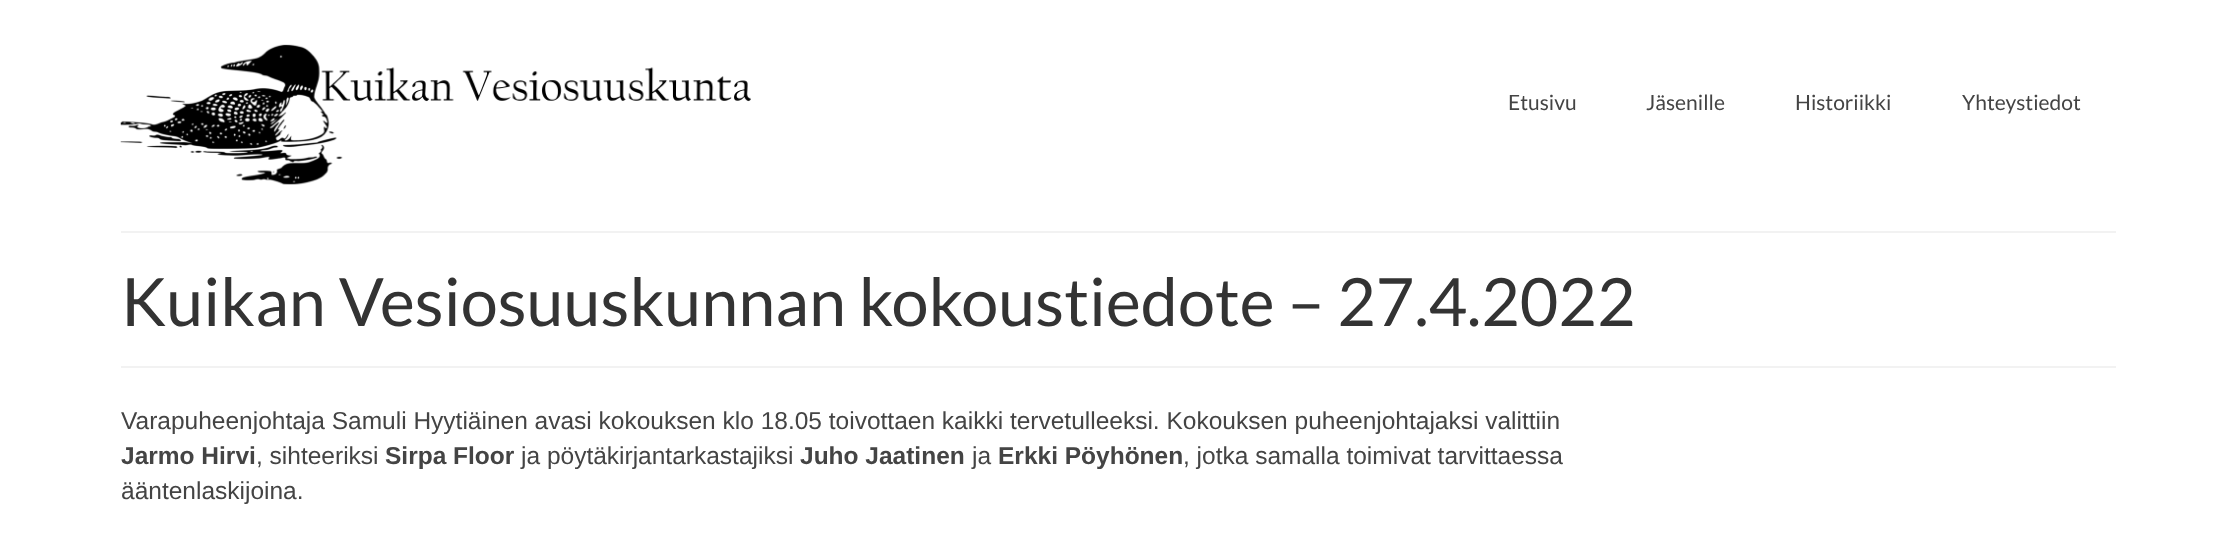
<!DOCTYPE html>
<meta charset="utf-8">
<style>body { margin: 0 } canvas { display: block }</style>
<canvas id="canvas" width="2236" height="545"></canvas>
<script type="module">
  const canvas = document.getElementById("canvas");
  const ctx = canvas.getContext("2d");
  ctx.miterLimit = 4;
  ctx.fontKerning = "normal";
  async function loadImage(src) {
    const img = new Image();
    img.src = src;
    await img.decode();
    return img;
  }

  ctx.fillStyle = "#ffffff";
  ctx.fillRect(0, 0, 2236, 545);
  ctx.drawImage(await loadImage("img1.png"), 120, 44, 631, 141);
  ctx.font = "21px Lato";
  ctx.fillStyle = "#444444";
  ctx.fillText("Etusivu", 1508, 110);
  ctx.fillText("Jäsenille", 1646, 110);
  ctx.fillText("Historiikki", 1795, 110);
  ctx.fillText("Yhteystiedot", 1962, 110);
  ctx.fillStyle = "#f2f2f2";
  ctx.fillRect(121, 231, 1995, 2);
  ctx.fillRect(121, 366, 1995, 2);
  ctx.font = "66.5px Lato";
  ctx.fillStyle = "#333333";
  ctx.fillText("Kuikan Vesiosuuskunnan kokoustiedote – 27.4.2022", 121, 326);
  ctx.font = "24.5px Liberation Sans";
  ctx.fillStyle = "#444444";
  ctx.fillText("Varapuheenjohtaja Samuli Hyytiäinen avasi kokouksen klo 18.05 toivottaen kaikki tervetulleeksi. Kokouksen puheenjohtajaksi valittiin", 121, 429);
  ctx.font = "bold 24.5px Liberation Sans";
  ctx.fillText("Jarmo Hirvi", 121, 464);
  ctx.font = "24.5px Liberation Sans";
  ctx.fillText(", sihteeriksi", 256, 464);
  ctx.font = "bold 24.5px Liberation Sans";
  ctx.fillText("Sirpa Floor", 385, 464);
  ctx.font = "24.5px Liberation Sans";
  ctx.fillText("ja pöytäkirjantarkastajiksi", 521, 464);
  ctx.font = "bold 24.5px Liberation Sans";
  ctx.fillText("Juho Jaatinen", 800, 464);
  ctx.font = "24.5px Liberation Sans";
  ctx.fillText("ja", 972, 464);
  ctx.font = "bold 24.5px Liberation Sans";
  ctx.fillText("Erkki Pöyhönen", 998, 464);
  ctx.font = "24.5px Liberation Sans";
  ctx.fillText(", jotka samalla toimivat tarvittaessa", 1183, 464);
  ctx.fillText("ääntenlaskijoina.", 121, 499);
</script>
